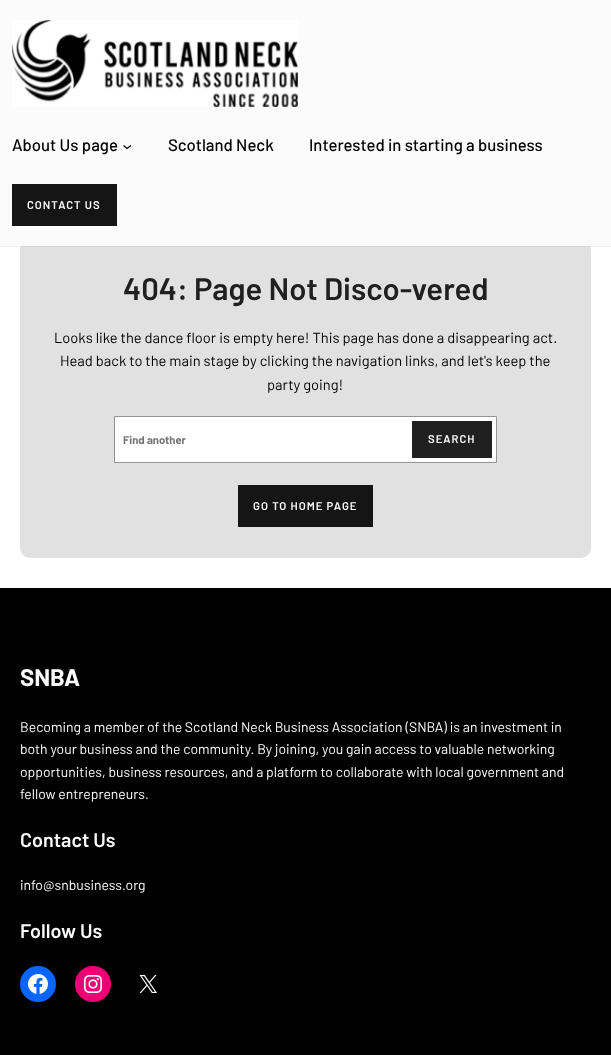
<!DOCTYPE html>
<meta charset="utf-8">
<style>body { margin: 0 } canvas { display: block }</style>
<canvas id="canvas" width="611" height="1055"></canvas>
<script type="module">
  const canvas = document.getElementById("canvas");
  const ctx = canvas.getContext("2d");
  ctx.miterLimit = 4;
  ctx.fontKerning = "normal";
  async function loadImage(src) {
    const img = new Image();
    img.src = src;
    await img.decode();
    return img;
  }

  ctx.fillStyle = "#ffffff";
  ctx.fillRect(0, 0, 611, 1055);
  ctx.fillStyle = "#e1e1e1";
  ctx.beginPath();
  ctx.roundRect(20, 239, 571, 319, 10);
  ctx.fill();
  ctx.strokeStyle = "rgba(0, 0, 0, 0.05)";
  ctx.strokeRect(-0.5, -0.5, 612, 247);
  ctx.fillStyle = "#fbfbfb";
  ctx.fillRect(0, 0, 611, 246);
  ctx.drawImage(await loadImage("img1.png"), 12, 20, 286, 87);
  ctx.font = "500 16.75px Barlow";
  ctx.fillStyle = "#000000";
  ctx.fillText("About Us page", 12, 151);
  ctx.beginPath();
  ctx.moveTo(123.5, 145.5);
  ctx.lineTo(127, 148.5);
  ctx.lineTo(131, 145.5);
  ctx.strokeStyle = "#000000";
  ctx.lineWidth = 1.3;
  ctx.stroke();
  ctx.fillText("Scotland Neck", 168, 151);
  ctx.fillText("Interested in starting a business", 309, 151);
  ctx.fillStyle = "#151515";
  ctx.fillRect(12, 184, 105, 42);
  ctx.letterSpacing = "1px";
  ctx.font = "600 11.25px Barlow";
  ctx.fillStyle = "#fbfbfb";
  ctx.fillText("CONTACT US", 27, 209);
  ctx.letterSpacing = "0px";
  ctx.font = "600 31px Barlow";
  ctx.fillStyle = "#202020";
  ctx.fillText("404: Page Not Disco-vered", 123, 300);
  ctx.font = "14.7px Barlow";
  ctx.fillStyle = "#000000";
  ctx.fillText("Looks like the dance floor is empty here! This page has done a disappearing act.", 54, 343);
  ctx.fillText("Head back to the main stage by clicking the navigation links, and let's keep the", 60, 366);
  ctx.fillText("party going!", 267, 390);
  ctx.fillStyle = "#ffffff";
  ctx.beginPath();
  ctx.rect(114.5, 416.5, 382, 46);
  ctx.fill();
  ctx.strokeStyle = "#949494";
  ctx.lineWidth = 1;
  ctx.stroke();
  ctx.font = "bold 11.25px Barlow";
  ctx.fillStyle = "#757575";
  ctx.fillText("Find another", 123, 444);
  ctx.fillStyle = "#202020";
  ctx.fillRect(412, 421, 80, 37);
  ctx.letterSpacing = "1px";
  ctx.font = "600 11.25px Barlow";
  ctx.fillStyle = "#fbfbfb";
  ctx.fillText("SEARCH", 428, 443);
  ctx.fillStyle = "#151515";
  ctx.fillRect(238, 485, 135, 42);
  ctx.fillStyle = "#fbfbfb";
  ctx.fillText("GO TO HOME PAGE", 253, 510);
  ctx.fillStyle = "#000000";
  ctx.fillRect(0, 588, 611, 467);
  ctx.letterSpacing = "0px";
  ctx.font = "bold 24px Barlow";
  ctx.fillStyle = "#fbfbfb";
  ctx.fillText("SNBA", 20, 686);
  ctx.font = "13.95px Barlow";
  ctx.fillText("Becoming a member of the Scotland Neck Business Association (SNBA) is an investment in", 20, 732);
  ctx.fillText("both your business and the community. By joining, you gain access to valuable networking", 20, 754);
  ctx.fillText("opportunities, business resources, and a platform to collaborate with local government and", 20, 777);
  ctx.fillText("fellow entrepreneurs.", 20, 799);
  ctx.font = "600 19.75px Barlow";
  ctx.fillText("Contact Us", 20, 847);
  ctx.font = "13.95px Barlow";
  ctx.fillText("info@snbusiness.org", 20, 890);
  ctx.font = "600 19.75px Barlow";
  ctx.fillText("Follow Us", 20, 938);
  ctx.fillStyle = "#0866ff";
  ctx.beginPath();
  ctx.arc(38, 984, 18, 0, Math.PI * 2);
  ctx.fill();
  ctx.drawImage(await loadImage("img2.png"), 28, 974, 20, 20);
  ctx.fillStyle = "#f00075";
  ctx.beginPath();
  ctx.arc(93, 984, 18, 0, Math.PI * 2);
  ctx.fill();
  ctx.drawImage(await loadImage("img3.png"), 84, 975, 18, 18);
  ctx.drawImage(await loadImage("img4.png"), 139, 975, 18, 18);
</script>
